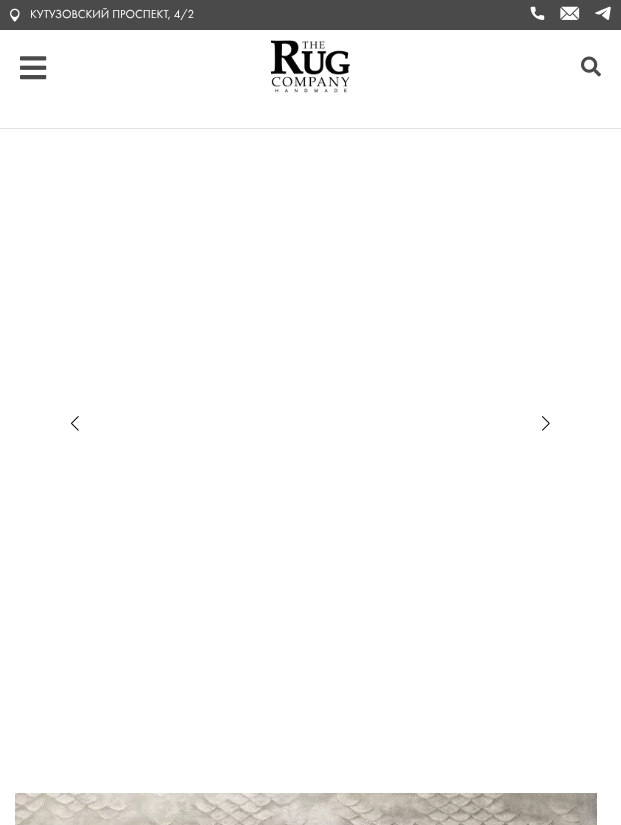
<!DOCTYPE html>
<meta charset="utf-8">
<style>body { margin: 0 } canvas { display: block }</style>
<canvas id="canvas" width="621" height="825"></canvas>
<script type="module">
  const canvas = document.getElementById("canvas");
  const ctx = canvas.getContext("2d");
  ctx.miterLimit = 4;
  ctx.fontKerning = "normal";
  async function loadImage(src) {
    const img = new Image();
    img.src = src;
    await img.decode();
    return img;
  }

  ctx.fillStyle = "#ffffff";
  ctx.fillRect(0, 0, 621, 825);
  ctx.fillStyle = "#4a4a4a";
  ctx.fillRect(0, 0, 621, 30);
  ctx.drawImage(await loadImage("img1.png"), 10, 8, 10, 14);
  ctx.font = "12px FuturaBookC";
  ctx.fillStyle = "#ffffff";
  ctx.fillText("КУТУЗОВСКИЙ ПРОСПЕКТ, 4/2", 30, 18);
  ctx.drawImage(await loadImage("img2.png"), 530, 6, 15, 14);
  ctx.drawImage(await loadImage("img3.png"), 560, 6, 20, 14);
  ctx.drawImage(await loadImage("img4.png"), 595, 6, 16, 14);
  ctx.fillStyle = "#e3e3e3";
  ctx.fillRect(0, 128, 621, 1);
  ctx.drawImage(await loadImage("img5.png"), 271, 40, 79, 53);
  ctx.drawImage(await loadImage("img6.png"), 20, 56, 27, 24);
  ctx.drawImage(await loadImage("img7.png"), 581, 56, 20, 21);
  ctx.drawImage(await loadImage("img8.png"), 71, 416, 8, 15);
  ctx.drawImage(await loadImage("img9.png"), 542, 416, 8, 15);
  ctx.drawImage(await loadImage("img10.png"), 15, 793, 582, 32);
</script>
